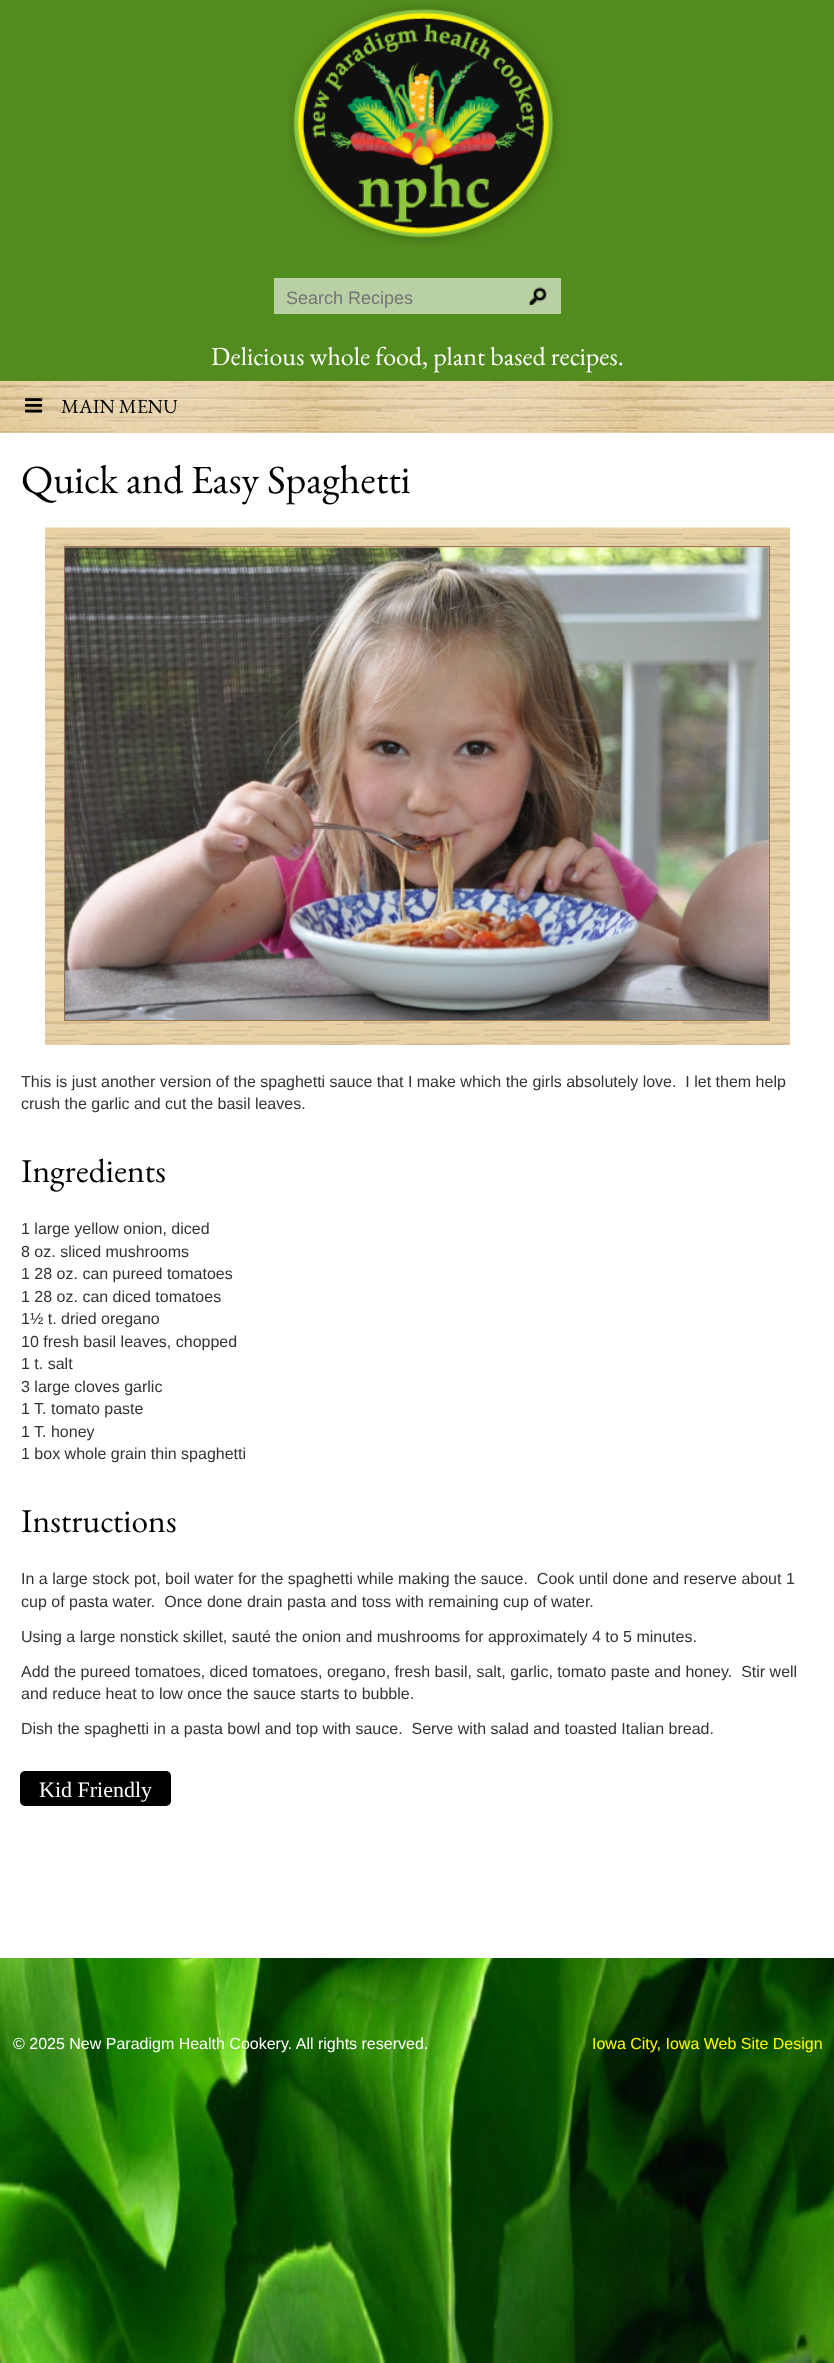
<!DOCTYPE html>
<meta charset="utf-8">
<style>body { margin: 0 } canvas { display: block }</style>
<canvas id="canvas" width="834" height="2363"></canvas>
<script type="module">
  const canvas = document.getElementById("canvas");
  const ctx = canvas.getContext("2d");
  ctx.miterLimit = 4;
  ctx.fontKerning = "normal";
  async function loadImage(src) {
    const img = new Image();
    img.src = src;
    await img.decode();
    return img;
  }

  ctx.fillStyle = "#ffffff";
  ctx.fillRect(0, 0, 834, 2363);
  ctx.fillStyle = "#538c1e";
  ctx.fillRect(0, 0, 834, 381);
  ctx.drawImage(await loadImage("img1.png"), 288, 3, 273, 243);
  ctx.fillStyle = "#b8d0a3";
  ctx.fillRect(274, 278, 287, 36);
  ctx.font = "18px Liberation Sans";
  ctx.fillStyle = "#757575";
  ctx.fillText("Search Recipes", 286, 304);
  ctx.drawImage(await loadImage("img2.png"), 528, 287, 19, 18);
  ctx.font = "26px EB Garamond";
  ctx.fillStyle = "#ffffff";
  ctx.fillText("Delicious whole food, plant based recipes.", 211, 365);
  ctx.fillStyle = "#e7d1a5";
  ctx.fillRect(0, 381, 834, 52);
  ctx.drawImage(await loadImage("img3.png"), 0, 381, 834, 52);
  ctx.drawImage(await loadImage("img4.png"), 25, 398, 18, 15);
  ctx.font = "20px EB Garamond";
  ctx.fillStyle = "#000000";
  ctx.fillText("MAIN MENU", 61, 413);
  ctx.font = "40px EB Garamond";
  ctx.fillText("Quick and Easy Spaghetti", 21, 493);
  ctx.drawImage(await loadImage("img5.png"), 45, 527, 745, 518);
  ctx.strokeStyle = "#9b7359";
  ctx.strokeRect(64.5, 546.5, 705, 474);
  ctx.drawImage(await loadImage("img6.png"), 65, 547, 704, 473);
  ctx.font = "16px Liberation Sans";
  ctx.fillStyle = "#333333";
  ctx.fillText("This is just another version of the spaghetti sauce that I make which the girls absolutely love.  I let them help", 21, 1087);
  ctx.fillText("crush the garlic and cut the basil leaves.", 21, 1109);
  ctx.font = "33.5px EB Garamond";
  ctx.fillStyle = "#000000";
  ctx.fillText("Ingredients", 21, 1182);
  ctx.font = "16px Liberation Sans";
  ctx.fillStyle = "#333333";
  ctx.fillText("1 large yellow onion, diced", 21, 1234);
  ctx.fillText("8 oz. sliced mushrooms", 21, 1257);
  ctx.fillText("1 28 oz. can pureed tomatoes", 21, 1279);
  ctx.fillText("1 28 oz. can diced tomatoes", 21, 1302);
  ctx.fillText("1½ t. dried oregano", 21, 1324);
  ctx.fillText("10 fresh basil leaves, chopped", 21, 1347);
  ctx.fillText("1 t. salt", 21, 1369);
  ctx.fillText("3 large cloves garlic", 21, 1392);
  ctx.fillText("1 T. tomato paste", 21, 1414);
  ctx.fillText("1 T. honey", 21, 1437);
  ctx.fillText("1 box whole grain thin spaghetti", 21, 1459);
  ctx.font = "33.5px EB Garamond";
  ctx.fillStyle = "#000000";
  ctx.fillText("Instructions", 21, 1532);
  ctx.font = "16px Liberation Sans";
  ctx.fillStyle = "#333333";
  ctx.fillText("In a large stock pot, boil water for the spaghetti while making the sauce.  Cook until done and reserve about 1", 21, 1584);
  ctx.fillText("cup of pasta water.  Once done drain pasta and toss with remaining cup of water.", 21, 1607);
  ctx.fillText("Using a large nonstick skillet, sauté the onion and mushrooms for approximately 4 to 5 minutes.", 21, 1642);
  ctx.fillText("Add the pureed tomatoes, diced tomatoes, oregano, fresh basil, salt, garlic, tomato paste and honey.  Stir well", 21, 1677);
  ctx.fillText("and reduce heat to low once the sauce starts to bubble.", 21, 1699);
  ctx.fillText("Dish the spaghetti in a pasta bowl and top with sauce.  Serve with salad and toasted Italian bread.", 21, 1734);
  ctx.fillStyle = "#000000";
  ctx.beginPath();
  ctx.roundRect(20, 1771, 151, 35, 5);
  ctx.fill();
  ctx.font = "22px Liberation Serif";
  ctx.fillStyle = "#ffffff";
  ctx.fillText("Kid Friendly", 39, 1797);
  ctx.drawImage(await loadImage("img7.png"), 0, 1958, 834, 405);
  ctx.font = "16px Liberation Sans";
  ctx.fillText("© 2025 New Paradigm Health Cookery. All rights reserved.", 13, 2049);
  ctx.fillStyle = "#ffff00";
  ctx.fillText("Iowa City, Iowa Web Site Design", 592, 2049);
</script>
